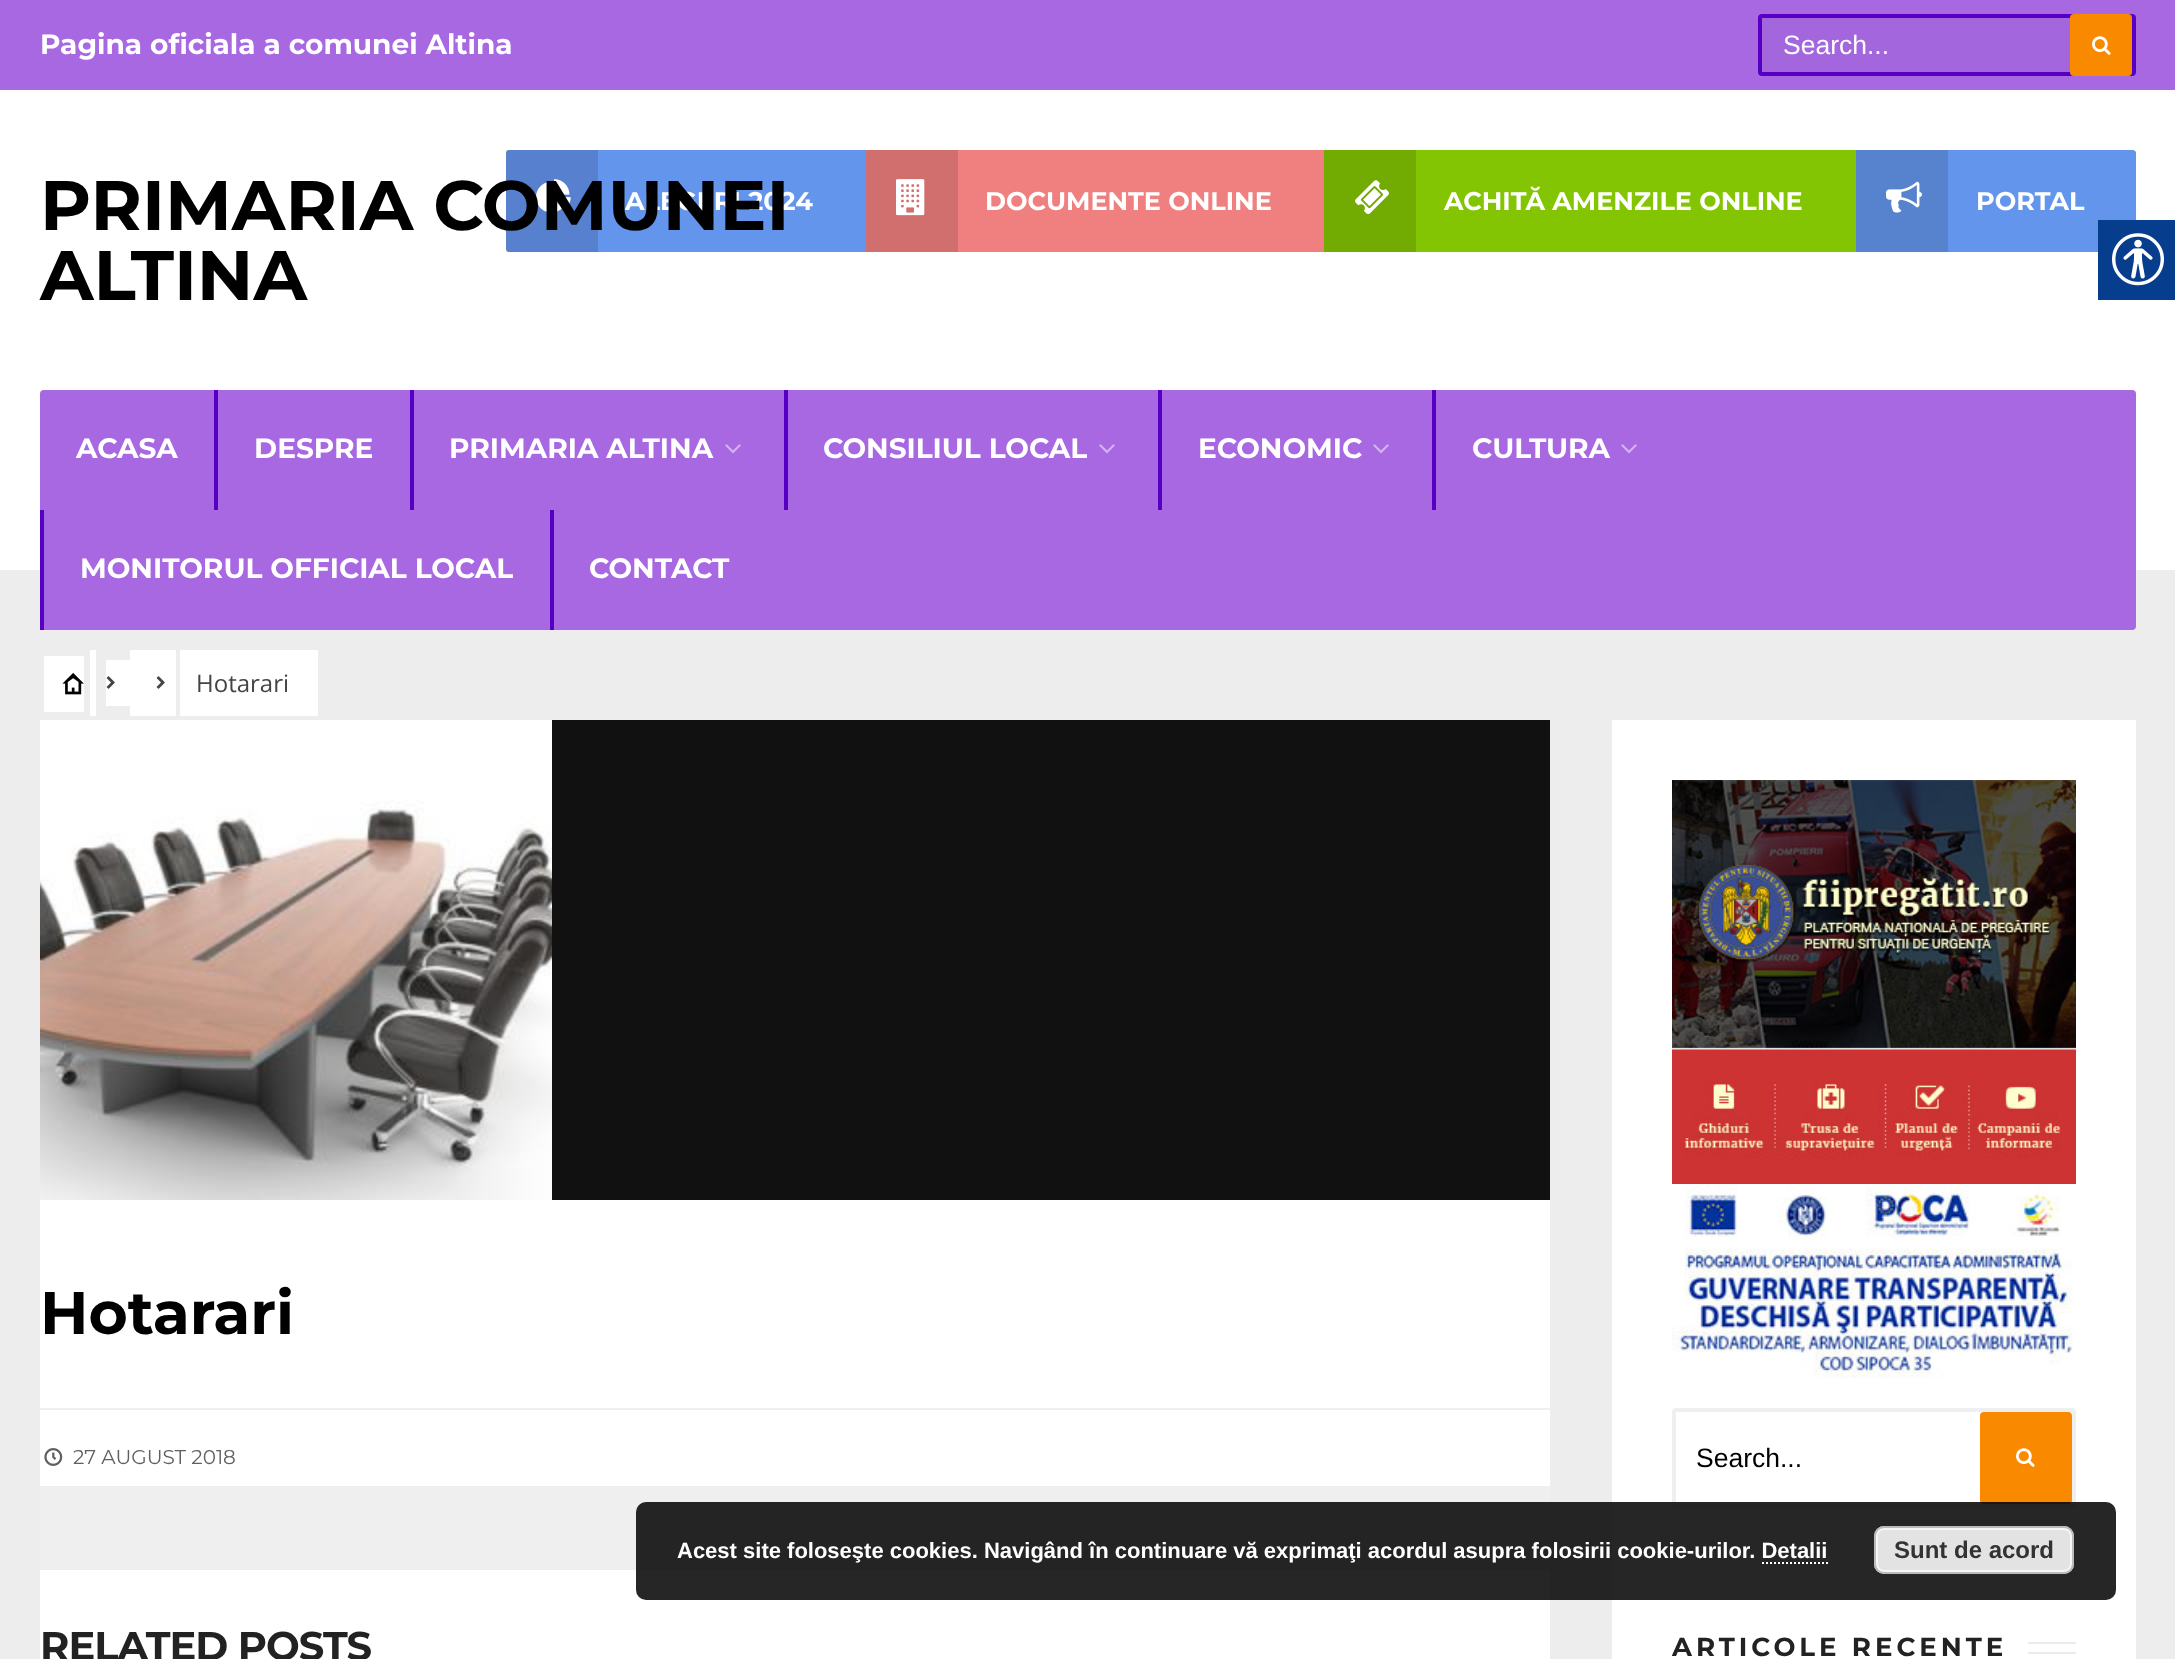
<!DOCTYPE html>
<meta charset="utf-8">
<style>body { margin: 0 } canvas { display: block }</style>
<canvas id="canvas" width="2175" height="1659"></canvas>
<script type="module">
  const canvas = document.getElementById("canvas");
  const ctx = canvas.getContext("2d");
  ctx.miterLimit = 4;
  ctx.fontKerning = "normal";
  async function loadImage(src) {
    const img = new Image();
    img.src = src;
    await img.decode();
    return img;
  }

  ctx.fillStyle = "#ededed";
  ctx.fillRect(0, 0, 2175, 1659);
  ctx.fillStyle = "#a768e2";
  ctx.fillRect(0, 0, 2175, 90);
  ctx.font = "bold 28px Montserrat";
  ctx.fillStyle = "#ffffff";
  ctx.fillText("Pagina oficiala a comunei Altina", 40, 54);
  ctx.fillStyle = "#a466dd";
  ctx.beginPath();
  ctx.roundRect(1760, 16, 374, 58, 2);
  ctx.fill();
  ctx.strokeStyle = "#5600c6";
  ctx.lineWidth = 4;
  ctx.stroke();
  ctx.font = "26.5px Liberation Sans";
  ctx.fillStyle = "#ffffff";
  ctx.fillText("Search...", 1783, 54);
  ctx.fillStyle = "#f98a00";
  ctx.beginPath();
  ctx.roundRect(2070, 14, 62, 62, 4);
  ctx.fill();
  ctx.drawImage(await loadImage("img1.png"), 2092, 36, 19, 19);
  ctx.fillStyle = "#ffffff";
  ctx.fillRect(0, 90, 2175, 480);
  ctx.fillStyle = "#83c502";
  ctx.beginPath();
  ctx.roundRect(506, 150, 1630, 102, 4);
  ctx.fill();
  ctx.fillStyle = "#6495ed";
  ctx.beginPath();
  ctx.roundRect(506, 150, 360, 102, [4, 0, 0, 4]);
  ctx.fill();
  ctx.fillStyle = "rgba(0, 0, 0, 0.13)";
  ctx.fillRect(506, 150, 92, 102);
  ctx.drawImage(await loadImage("img2.png"), 536, 179, 35, 34);
  ctx.font = "bold 25.5px Montserrat";
  ctx.fillStyle = "#ffffff";
  ctx.fillText("ALEGERI 2024", 625, 210);
  ctx.font = "bold 70px Montserrat";
  ctx.fillStyle = "#000000";
  ctx.fillText("PRIMARIA COMUNEI", 40, 230);
  ctx.fillText("ALTINA", 40, 300);
  ctx.fillStyle = "#f08080";
  ctx.fillRect(958, 150, 366, 102);
  ctx.fillStyle = "#d16f6f";
  ctx.fillRect(866, 150, 92, 102);
  ctx.drawImage(await loadImage("img3.png"), 896, 179, 29, 37);
  ctx.font = "bold 25.5px Montserrat";
  ctx.fillStyle = "#ffffff";
  ctx.fillText("DOCUMENTE ONLINE", 985, 210);
  ctx.fillStyle = "#72ab02";
  ctx.fillRect(1324, 150, 92, 102);
  ctx.drawImage(await loadImage("img4.png"), 1355, 180, 34, 35);
  ctx.fillStyle = "#ffffff";
  ctx.fillText("ACHITĂ AMENZILE ONLINE", 1444, 210);
  ctx.fillStyle = "#6495ed";
  ctx.beginPath();
  ctx.roundRect(1856, 150, 280, 102, [0, 4, 4, 0]);
  ctx.fill();
  ctx.fillStyle = "#5782ce";
  ctx.fillRect(1856, 150, 92, 102);
  ctx.drawImage(await loadImage("img5.png"), 1886, 181, 36, 32);
  ctx.fillStyle = "#ffffff";
  ctx.fillText("PORTAL", 1976, 210);
  ctx.fillStyle = "#a768e2";
  ctx.beginPath();
  ctx.roundRect(40, 390, 2096, 240, 4);
  ctx.fill();
  ctx.font = "bold 28px Montserrat";
  ctx.fillStyle = "#ffffff";
  ctx.fillText("ACASA", 76, 458);
  ctx.fillStyle = "#5600c6";
  ctx.fillRect(214, 390, 4, 120);
  ctx.fillStyle = "#ffffff";
  ctx.fillText("DESPRE", 254, 458);
  ctx.fillStyle = "#5600c6";
  ctx.fillRect(410, 390, 4, 120);
  ctx.fillStyle = "#ffffff";
  ctx.fillText("PRIMARIA ALTINA", 449, 458);
  ctx.drawImage(await loadImage("img6.png"), 725, 444, 16, 10);
  ctx.fillStyle = "#5600c6";
  ctx.fillRect(784, 390, 4, 120);
  ctx.fillStyle = "#ffffff";
  ctx.fillText("CONSILIUL LOCAL", 823, 458);
  ctx.drawImage(await loadImage("img6.png"), 1099, 444, 16, 10);
  ctx.fillStyle = "#5600c6";
  ctx.fillRect(1158, 390, 4, 120);
  ctx.fillStyle = "#ffffff";
  ctx.fillText("ECONOMIC", 1198, 458);
  ctx.drawImage(await loadImage("img6.png"), 1373, 444, 16, 10);
  ctx.fillStyle = "#5600c6";
  ctx.fillRect(1432, 390, 4, 120);
  ctx.fillStyle = "#ffffff";
  ctx.fillText("CULTURA", 1472, 458);
  ctx.drawImage(await loadImage("img6.png"), 1621, 444, 16, 10);
  ctx.fillStyle = "#5600c6";
  ctx.fillRect(40, 510, 4, 120);
  ctx.fillStyle = "#ffffff";
  ctx.fillText("MONITORUL OFFICIAL LOCAL", 80, 578);
  ctx.fillStyle = "#5600c6";
  ctx.fillRect(550, 510, 4, 120);
  ctx.fillStyle = "#ffffff";
  ctx.fillText("CONTACT", 589, 578);
  ctx.fillRect(44, 656, 40, 56);
  ctx.fillRect(90, 650, 6, 66);
  ctx.fillRect(106, 660, 24, 46);
  ctx.drawImage(await loadImage("img7.png"), 62, 673, 22, 22);
  ctx.drawImage(await loadImage("img8.png"), 106, 676, 9, 13);
  ctx.fillRect(130, 650, 46, 66);
  ctx.drawImage(await loadImage("img8.png"), 156, 676, 9, 13);
  ctx.fillRect(180, 650, 138, 66);
  ctx.font = "24px Open Sans";
  ctx.fillStyle = "#444444";
  ctx.fillText("Hotarari", 196, 692);
  ctx.fillStyle = "#ffffff";
  ctx.fillRect(40, 1200, 1510, 459);
  ctx.fillStyle = "#111111";
  ctx.fillRect(552, 720, 998, 480);
  ctx.drawImage(await loadImage("img9.png"), 40, 720, 512, 480);
  ctx.font = "bold 60px Montserrat";
  ctx.fillStyle = "#000000";
  ctx.fillText("Hotarari", 40, 1334);
  ctx.fillStyle = "#efefef";
  ctx.fillRect(40, 1408, 1510, 2);
  ctx.drawImage(await loadImage("img10.png"), 44, 1448, 19, 18);
  ctx.font = "20px Montserrat";
  ctx.fillStyle = "#606060";
  ctx.fillText("27 AUGUST 2018", 73, 1464);
  ctx.fillStyle = "#efefef";
  ctx.fillRect(40, 1486, 1510, 84);
  ctx.letterSpacing = "-1px";
  ctx.font = "bold 40px Montserrat";
  ctx.fillStyle = "#222222";
  ctx.fillText("RELATED POSTS", 40, 1660);
  ctx.fillStyle = "#ffffff";
  ctx.fillRect(1612, 720, 524, 939);
  ctx.drawImage(await loadImage("img11.png"), 1672, 780, 404, 404);
  ctx.drawImage(await loadImage("img12.png"), 1672, 1184, 401, 194);
  ctx.beginPath();
  ctx.roundRect(1674, 1410, 400, 96, 2);
  ctx.strokeStyle = "#efefef";
  ctx.stroke();
  ctx.letterSpacing = "0px";
  ctx.font = "26.5px Liberation Sans";
  ctx.fillStyle = "#000000";
  ctx.fillText("Search...", 1696, 1467);
  ctx.fillStyle = "#f98a00";
  ctx.beginPath();
  ctx.roundRect(1980, 1412, 92, 92, 4);
  ctx.fill();
  ctx.drawImage(await loadImage("img1.png"), 2016, 1448, 19, 19);
  ctx.save();
  ctx.beginPath();
  ctx.rect(1672, 1588, 404, 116);
  ctx.clip();
  ctx.strokeStyle = "#ebebeb";
  ctx.lineWidth = 2;
  ctx.strokeRect(1673, 1643, 406, 10);
  ctx.restore();
  ctx.fillStyle = "#ffffff";
  ctx.fillRect(1672, 1642, 356, 12);
  ctx.letterSpacing = "4px";
  ctx.font = "bold 26px Montserrat";
  ctx.fillStyle = "#222222";
  ctx.fillText("ARTICOLE RECENTE", 1672, 1656);
  ctx.fillStyle = "#063d8d";
  ctx.fillRect(2098, 220, 77, 80);
  ctx.drawImage(await loadImage("img13.png"), 2112, 233, 52, 53);
  ctx.fillStyle = "rgba(0, 0, 0, 0.85)";
  ctx.beginPath();
  ctx.roundRect(636, 1502, 1480, 98, 10);
  ctx.fill();
  ctx.letterSpacing = "0px";
  ctx.font = "bold 22px Liberation Sans";
  ctx.fillStyle = "#ffffff";
  ctx.fillText("Acest site foloseşte cookies. Navigând în continuare vă exprimaţi acordul asupra folosirii cookie-urilor. Detalii", 677, 1558);
  ctx.fillStyle = "#e3e3e3";
  ctx.beginPath();
  ctx.roundRect(1874, 1526, 200, 48, 10);
  ctx.fill();
  ctx.beginPath();
  ctx.roundRect(1877, 1529, 194, 42, 7);
  ctx.strokeStyle = "#f6f6f6";
  ctx.lineWidth = 2;
  ctx.stroke();
  ctx.beginPath();
  ctx.roundRect(1875, 1527, 198, 46, 9);
  ctx.strokeStyle = "#bbbbbb";
  ctx.stroke();
  ctx.font = "bold 24px Liberation Sans";
  ctx.fillStyle = "#333333";
  ctx.fillText("Sunt de acord", 1894, 1558);
  ctx.beginPath();
  ctx.moveTo(1762, 1563);
  ctx.lineTo(1828, 1563);
  ctx.strokeStyle = "#ffffff";
  ctx.setLineDash([2, 2]);
  ctx.stroke();
</script>
